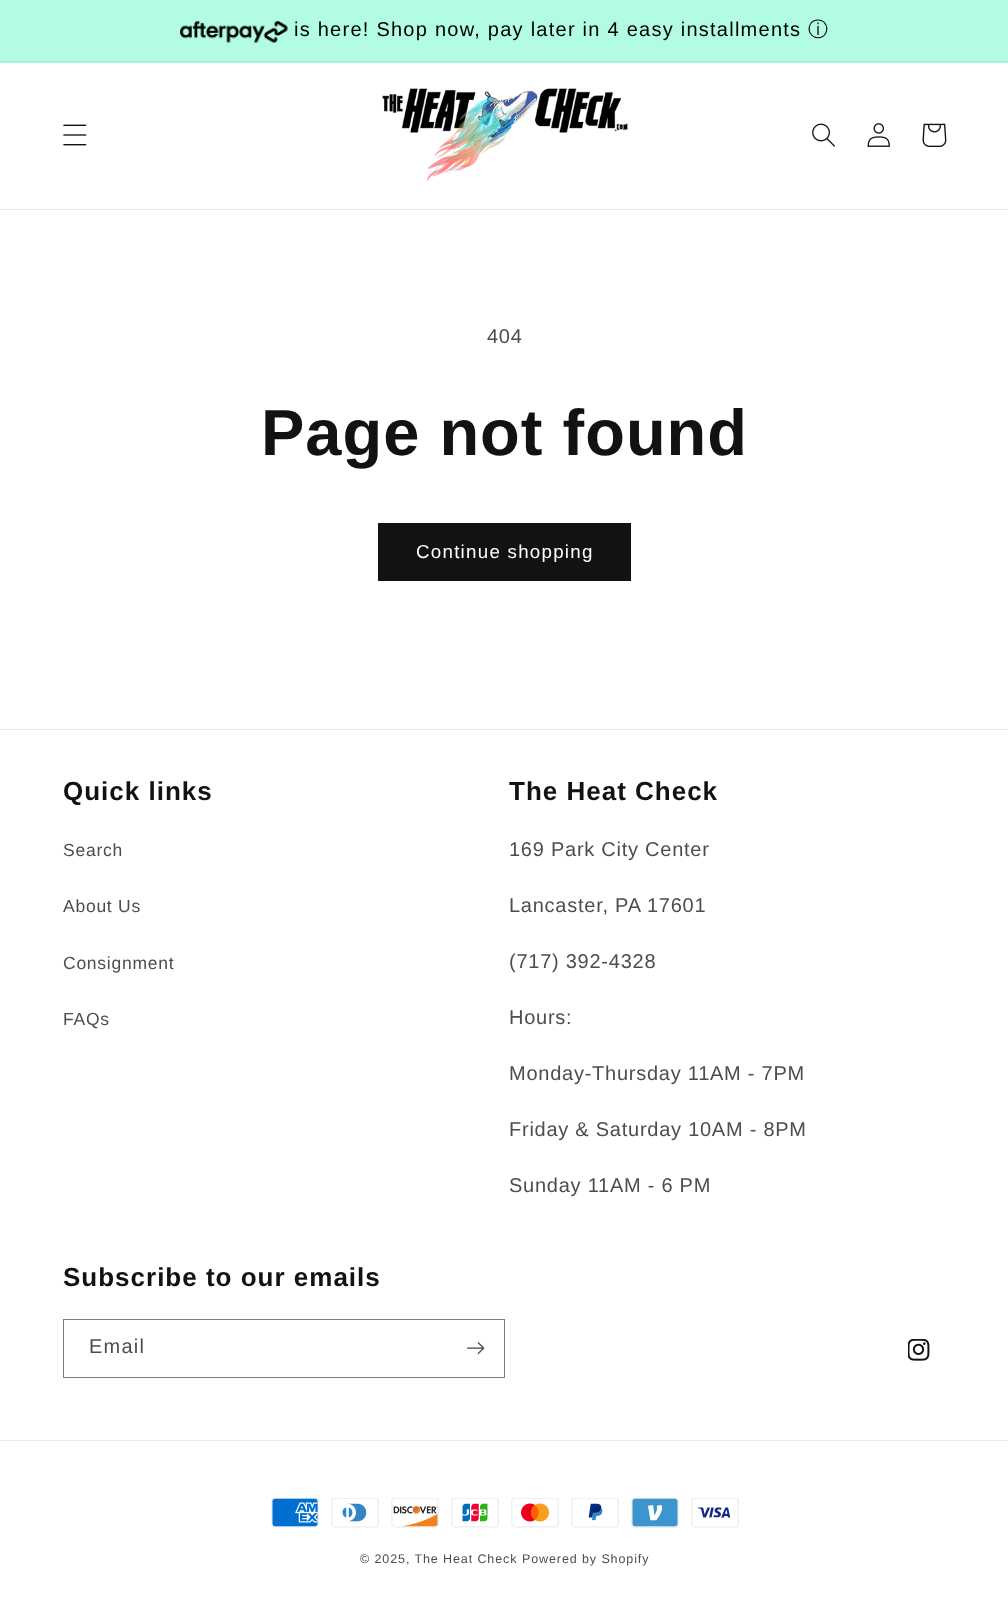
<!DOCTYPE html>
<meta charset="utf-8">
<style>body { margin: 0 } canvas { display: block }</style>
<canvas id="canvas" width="1008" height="1616"></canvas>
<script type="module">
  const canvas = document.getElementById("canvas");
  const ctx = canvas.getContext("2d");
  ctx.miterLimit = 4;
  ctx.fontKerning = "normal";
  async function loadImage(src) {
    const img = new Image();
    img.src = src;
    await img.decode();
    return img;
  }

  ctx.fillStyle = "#ffffff";
  ctx.fillRect(0, 0, 1008, 1616);
  ctx.fillStyle = "#b2fce4";
  ctx.fillRect(0, 0, 1008, 63);
  ctx.fillStyle = "#a5e9d3";
  ctx.fillRect(0, 61, 1008, 1);
  ctx.drawImage(await loadImage("img1.png"), 180, 21, 108, 22);
  ctx.letterSpacing = "1.25px";
  ctx.font = "20px Liberation Sans";
  ctx.fillStyle = "#000000";
  ctx.fillText("is here! Shop now, pay later in 4 easy installments", 294, 36);
  ctx.font = "500 20px WenQuanYi Zen Hei";
  ctx.fillText("ⓘ", 808, 36);
  ctx.fillStyle = "#ececec";
  ctx.fillRect(0, 209, 1008, 1);
  ctx.drawImage(await loadImage("img2.png"), 63, 124, 24, 22);
  ctx.drawImage(await loadImage("img3.png"), 382, 88, 246, 94);
  ctx.drawImage(await loadImage("img4.png"), 812, 123, 23, 24);
  ctx.drawImage(await loadImage("img5.png"), 867, 123, 23, 24);
  ctx.drawImage(await loadImage("img6.png"), 922, 123, 25, 24);
  ctx.letterSpacing = "0.75px";
  ctx.font = "20px Liberation Sans";
  ctx.fillStyle = "#4d4d4d";
  ctx.fillText("404", 487, 343);
  ctx.letterSpacing = "1px";
  ctx.font = "bold 65px Liberation Sans";
  ctx.fillStyle = "#121212";
  ctx.fillText("Page not found", 261, 455);
  ctx.fillRect(378, 523, 253, 58);
  ctx.letterSpacing = "1.25px";
  ctx.font = "18.75px Liberation Sans";
  ctx.fillStyle = "#ffffff";
  ctx.fillText("Continue shopping", 416, 558);
  ctx.fillStyle = "#ececec";
  ctx.fillRect(0, 729, 1008, 1);
  ctx.letterSpacing = "1px";
  ctx.font = "bold 26px Liberation Sans";
  ctx.fillStyle = "#121212";
  ctx.fillText("Quick links", 63, 800);
  ctx.letterSpacing = "0.75px";
  ctx.font = "17.5px Liberation Sans";
  ctx.fillStyle = "#4d4d4d";
  ctx.fillText("Search", 63, 856);
  ctx.fillText("About Us", 63, 912);
  ctx.fillText("Consignment", 63, 969);
  ctx.fillText("FAQs", 63, 1025);
  ctx.letterSpacing = "1px";
  ctx.font = "bold 26px Liberation Sans";
  ctx.fillStyle = "#121212";
  ctx.fillText("The Heat Check", 509, 800);
  ctx.letterSpacing = "0.75px";
  ctx.font = "20px Liberation Sans";
  ctx.fillStyle = "#4d4d4d";
  ctx.fillText("169 Park City Center", 509, 856);
  ctx.fillText("Lancaster, PA 17601", 509, 912);
  ctx.fillText("(717) 392-4328", 509, 968);
  ctx.fillText("Hours:", 509, 1024);
  ctx.fillText("Monday-Thursday 11AM - 7PM", 509, 1080);
  ctx.fillText("Friday & Saturday 10AM - 8PM", 509, 1136);
  ctx.fillText("Sunday 11AM - 6 PM", 509, 1192);
  ctx.letterSpacing = "1px";
  ctx.font = "bold 26px Liberation Sans";
  ctx.fillStyle = "#121212";
  ctx.fillText("Subscribe to our emails", 63, 1286);
  ctx.strokeStyle = "#7d7d7d";
  ctx.strokeRect(63.5, 1319.5, 441, 58);
  ctx.letterSpacing = "1.25px";
  ctx.font = "20px Liberation Sans";
  ctx.fillStyle = "#4d4d4d";
  ctx.fillText("Email", 89, 1353);
  ctx.drawImage(await loadImage("img7.png"), 467, 1342, 18, 13);
  ctx.drawImage(await loadImage("img8.png"), 908, 1339, 22, 22);
  ctx.fillStyle = "#ececec";
  ctx.fillRect(0, 1440, 1008, 1);
  ctx.drawImage(await loadImage("img9.png"), 271, 1498, 48, 30);
  ctx.drawImage(await loadImage("img10.png"), 331, 1498, 48, 30);
  ctx.drawImage(await loadImage("img11.png"), 391, 1498, 48, 30);
  ctx.drawImage(await loadImage("img12.png"), 451, 1498, 48, 30);
  ctx.drawImage(await loadImage("img13.png"), 511, 1498, 48, 30);
  ctx.drawImage(await loadImage("img14.png"), 571, 1498, 48, 30);
  ctx.drawImage(await loadImage("img15.png"), 631, 1498, 48, 30);
  ctx.drawImage(await loadImage("img16.png"), 691, 1498, 48, 30);
  ctx.letterSpacing = "0.9px";
  ctx.font = "12.5px Liberation Sans";
  ctx.fillStyle = "#4d4d4d";
  ctx.fillText("© 2025, The Heat Check", 360, 1563);
  ctx.fillText("Powered by Shopify", 522, 1563);
</script>
